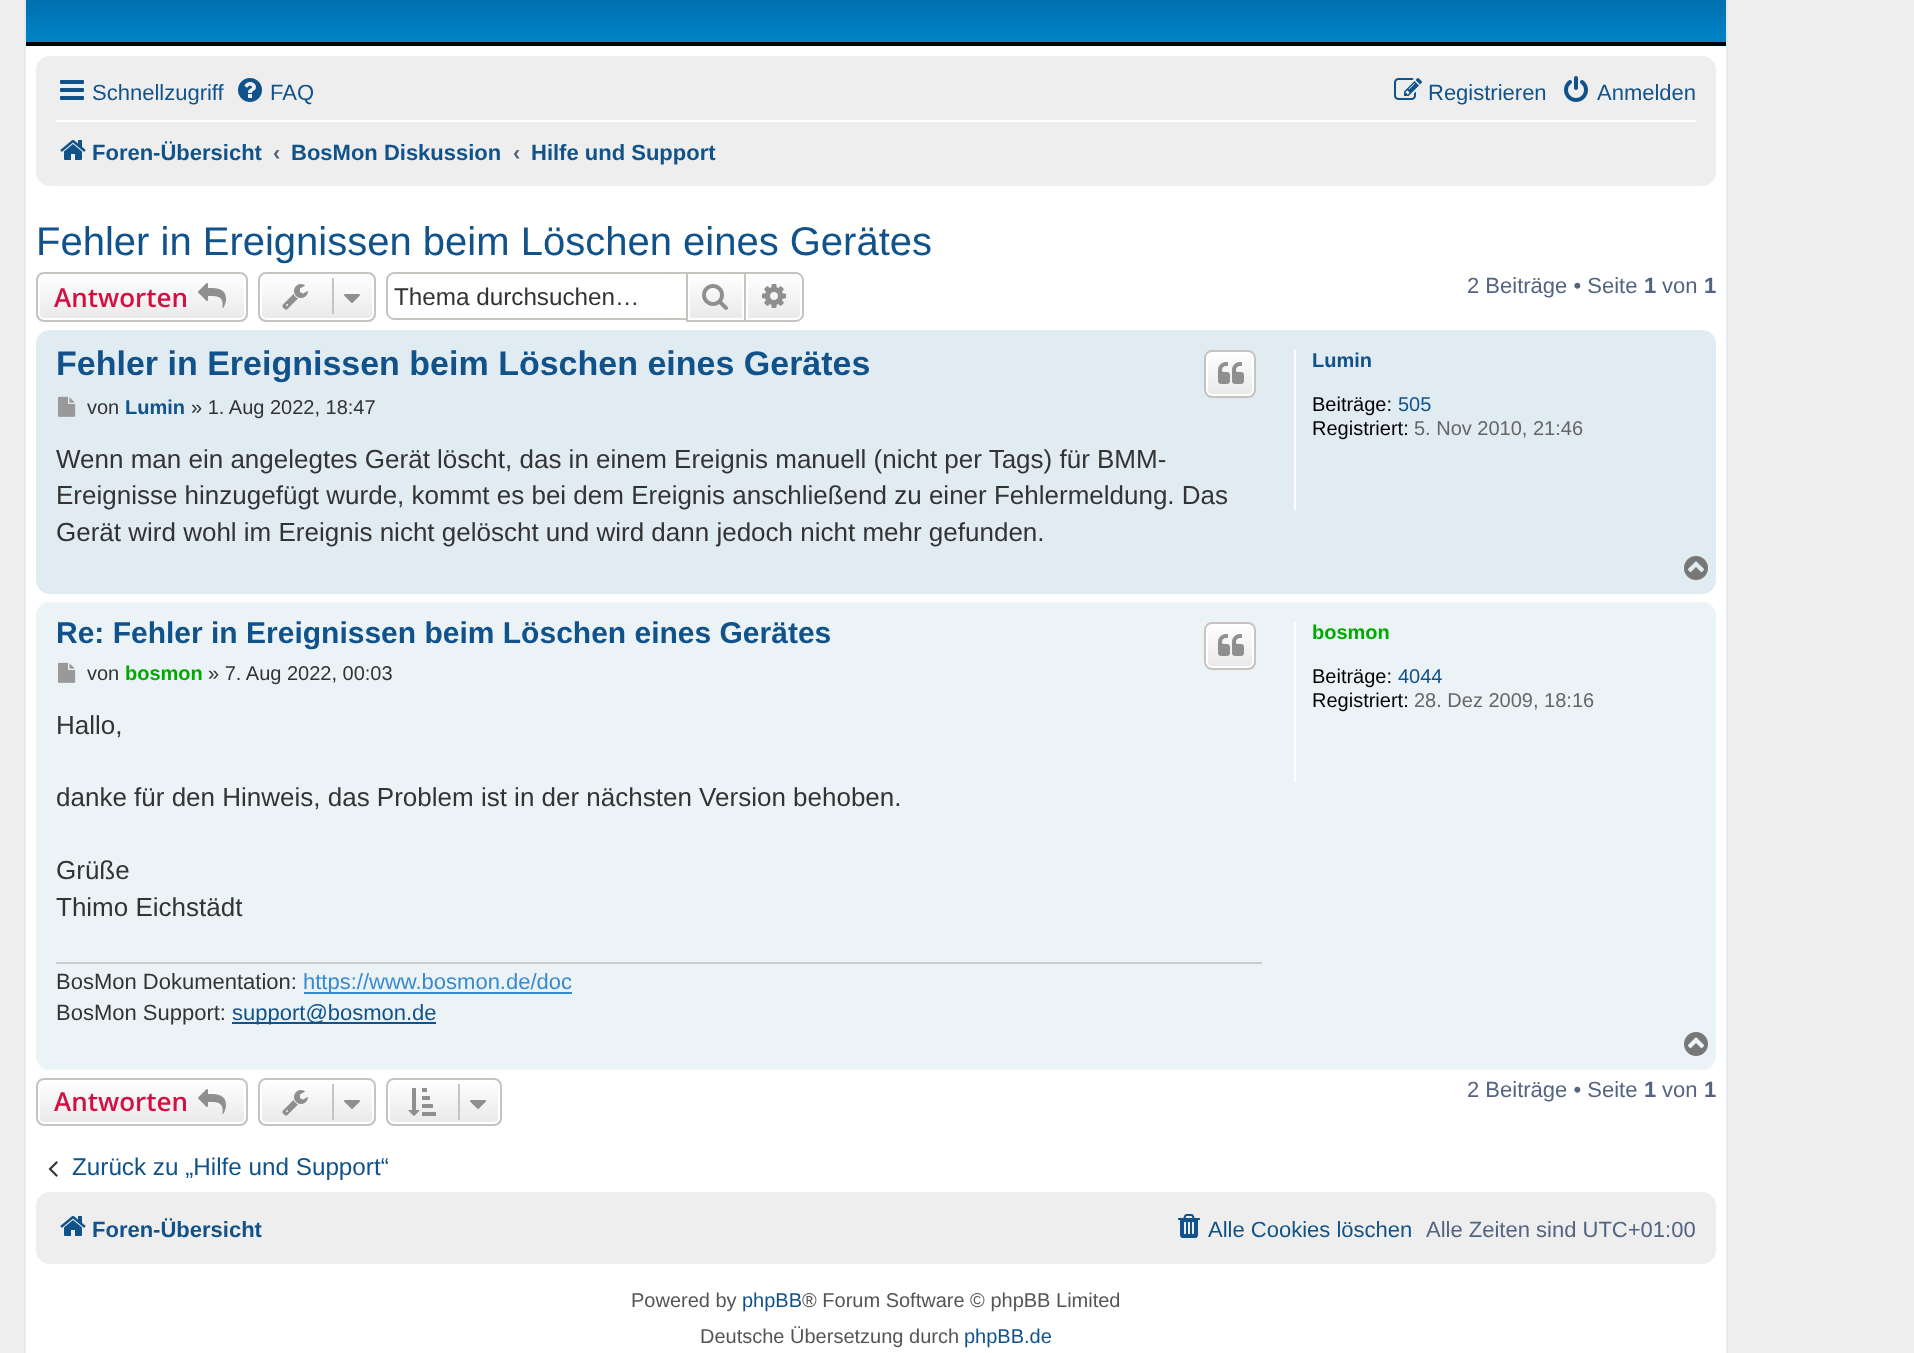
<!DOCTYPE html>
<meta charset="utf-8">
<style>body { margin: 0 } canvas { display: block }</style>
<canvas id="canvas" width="1914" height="1353"></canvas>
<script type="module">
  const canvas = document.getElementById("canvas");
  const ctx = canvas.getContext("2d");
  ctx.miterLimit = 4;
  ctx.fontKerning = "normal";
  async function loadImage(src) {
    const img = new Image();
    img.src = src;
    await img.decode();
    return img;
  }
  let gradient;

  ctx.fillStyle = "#eeeeee";
  ctx.fillRect(0, 0, 1914, 1353);
  ctx.fillStyle = "#ffffff";
  ctx.fillRect(26, 46, 1700, 1307);
  ctx.strokeStyle = "#e6e9ed";
  ctx.lineWidth = 2;
  ctx.strokeRect(25, -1, 1702, 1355);
  ctx.drawImage(await loadImage("img1.png"), 26, 0, 1700, 42);
  ctx.fillStyle = "#000000";
  ctx.fillRect(26, 42, 1700, 4);
  ctx.fillStyle = "#eeeeee";
  ctx.beginPath();
  ctx.roundRect(36, 56, 1680, 130, 14);
  ctx.fill();
  ctx.drawImage(await loadImage("img2.png"), 60, 80, 24, 20);
  ctx.font = "22px Liberation Sans";
  ctx.fillStyle = "#105289";
  ctx.fillText("Schnellzugriff", 92, 100);
  ctx.drawImage(await loadImage("img3.png"), 238, 78, 24, 24);
  ctx.fillText("FAQ", 270, 100);
  ctx.drawImage(await loadImage("img4.png"), 1394, 78, 28, 22);
  ctx.fillText("Registrieren", 1428, 100);
  ctx.drawImage(await loadImage("img5.png"), 1564, 76, 24, 26);
  ctx.fillText("Anmelden", 1597, 100);
  ctx.fillStyle = "#ffffff";
  ctx.fillRect(56, 120, 1640, 2);
  ctx.drawImage(await loadImage("img6.png"), 60, 140, 26, 20);
  ctx.font = "bold 22px Liberation Sans";
  ctx.fillStyle = "#105289";
  ctx.fillText("Foren-Übersicht", 92, 160);
  ctx.fillStyle = "#536482";
  ctx.fillText("‹", 273, 160);
  ctx.fillStyle = "#105289";
  ctx.fillText("BosMon Diskussion", 291, 160);
  ctx.fillStyle = "#536482";
  ctx.fillText("‹", 513, 160);
  ctx.fillStyle = "#105289";
  ctx.fillText("Hilfe und Support", 531, 160);
  ctx.font = "40px Liberation Sans";
  ctx.fillText("Fehler in Ereignissen beim Löschen eines Gerätes", 36, 255);
  ctx.save();
  ctx.beginPath();
  ctx.roundRect(36, 272, 212, 50, 8);
  ctx.clip();
  gradient = ctx.createLinearGradient(142, 274, 142, 320);
  gradient.addColorStop(0, "#ffffff");
  gradient.addColorStop(1, "#e9e9e9");
  ctx.fillStyle = gradient;
  ctx.fillRect(36, 274, 212, 46);
  ctx.restore();
  ctx.beginPath();
  ctx.roundRect(39, 275, 206, 44, 5);
  ctx.strokeStyle = "#ffffff";
  ctx.stroke();
  ctx.beginPath();
  ctx.roundRect(37, 273, 210, 48, 7);
  ctx.strokeStyle = "#c7c3bf";
  ctx.stroke();
  ctx.font = "600 26px Open Sans";
  ctx.fillStyle = "#d31141";
  ctx.fillText("Antworten", 54, 307);
  ctx.drawImage(await loadImage("img7.png"), 198, 283, 28, 25);
  ctx.save();
  ctx.beginPath();
  ctx.roundRect(258, 272, 118, 50, 8);
  ctx.clip();
  gradient = ctx.createLinearGradient(317, 274, 317, 320);
  gradient.addColorStop(0, "#ffffff");
  gradient.addColorStop(1, "#e9e9e9");
  ctx.fillStyle = gradient;
  ctx.fillRect(258, 274, 118, 46);
  ctx.restore();
  ctx.beginPath();
  ctx.roundRect(261, 275, 112, 44, 5);
  ctx.strokeStyle = "#ffffff";
  ctx.stroke();
  ctx.beginPath();
  ctx.roundRect(259, 273, 116, 48, 7);
  ctx.strokeStyle = "#c7c3bf";
  ctx.stroke();
  ctx.drawImage(await loadImage("img8.png"), 282, 284, 26, 26);
  ctx.fillStyle = "#c7c3bf";
  ctx.fillRect(332, 278, 2, 36);
  ctx.drawImage(await loadImage("img9.png"), 344, 294, 16, 9);
  ctx.beginPath();
  ctx.moveTo(394, 272);
  ctx.lineTo(686, 272);
  ctx.lineTo(686, 320);
  ctx.lineTo(394, 320);
  ctx.bezierCurveTo(390, 320, 386, 316, 386, 312);
  ctx.lineTo(386, 280);
  ctx.bezierCurveTo(386, 276, 390, 272, 394, 272);
  ctx.closePath();
  ctx.moveTo(394, 274);
  ctx.lineTo(686, 274);
  ctx.lineTo(686, 318);
  ctx.lineTo(394, 318);
  ctx.bezierCurveTo(391, 318, 388, 315, 388, 312);
  ctx.lineTo(388, 280);
  ctx.bezierCurveTo(388, 277, 391, 274, 394, 274);
  ctx.closePath();
  ctx.fill("evenodd");
  ctx.font = "24.25px Liberation Sans";
  ctx.fillStyle = "#333333";
  ctx.fillText("Thema durchsuchen…", 394, 305);
  gradient = ctx.createLinearGradient(716, 274, 716, 320);
  gradient.addColorStop(0, "#ffffff");
  gradient.addColorStop(1, "#e9e9e9");
  ctx.fillStyle = gradient;
  ctx.fillRect(690, 279, 52, 39);
  ctx.strokeRect(687, 273, 58, 48);
  ctx.drawImage(await loadImage("img10.png"), 702, 284, 26, 26);
  gradient = ctx.createLinearGradient(774, 274, 774, 320);
  gradient.addColorStop(0, "#ffffff");
  gradient.addColorStop(1, "#e9e9e9");
  ctx.fillStyle = gradient;
  ctx.beginPath();
  ctx.roundRect(747, 275, 54, 44, [0, 5, 5, 0]);
  ctx.fill();
  ctx.strokeStyle = "#ffffff";
  ctx.stroke();
  ctx.fillStyle = "#c7c3bf";
  ctx.beginPath();
  ctx.moveTo(746, 272);
  ctx.lineTo(796, 272);
  ctx.bezierCurveTo(800, 272, 804, 276, 804, 280);
  ctx.lineTo(804, 314);
  ctx.bezierCurveTo(804, 318, 800, 322, 796, 322);
  ctx.lineTo(746, 322);
  ctx.closePath();
  ctx.moveTo(746, 274);
  ctx.lineTo(796, 274);
  ctx.bezierCurveTo(799, 274, 802, 277, 802, 280);
  ctx.lineTo(802, 314);
  ctx.bezierCurveTo(802, 317, 799, 320, 796, 320);
  ctx.lineTo(746, 320);
  ctx.closePath();
  ctx.fill("evenodd");
  ctx.drawImage(await loadImage("img11.png"), 762, 284, 24, 24);
  ctx.font = "22px Liberation Sans";
  ctx.fillStyle = "#536482";
  ctx.fillText("2 Beiträge • Seite", 1467, 293);
  ctx.font = "bold 22px Liberation Sans";
  ctx.fillText("1", 1644, 293);
  ctx.font = "22px Liberation Sans";
  ctx.fillText("von", 1662, 293);
  ctx.font = "bold 22px Liberation Sans";
  ctx.fillText("1", 1704, 293);
  ctx.fillStyle = "#e1ebf2";
  ctx.beginPath();
  ctx.roundRect(36, 330, 1680, 264, 14);
  ctx.fill();
  ctx.font = "bold 34px Liberation Sans";
  ctx.fillStyle = "#105289";
  ctx.fillText("Fehler in Ereignissen beim Löschen eines Gerätes", 56, 375);
  ctx.save();
  ctx.beginPath();
  ctx.roundRect(1204, 350, 52, 48, 8);
  ctx.clip();
  gradient = ctx.createLinearGradient(1230, 352, 1230, 396);
  gradient.addColorStop(0, "#ffffff");
  gradient.addColorStop(1, "#e9e9e9");
  ctx.fillStyle = gradient;
  ctx.fillRect(1204, 352, 52, 44);
  ctx.restore();
  ctx.beginPath();
  ctx.roundRect(1207, 353, 46, 42, 5);
  ctx.stroke();
  ctx.beginPath();
  ctx.roundRect(1205, 351, 50, 46, 7);
  ctx.strokeStyle = "#c7c3bf";
  ctx.stroke();
  ctx.drawImage(await loadImage("img12.png"), 1218, 362, 26, 22);
  ctx.drawImage(await loadImage("img13.png"), 58, 396, 18, 21);
  ctx.font = "20px Liberation Sans";
  ctx.fillStyle = "#333333";
  ctx.fillText("von", 87, 414);
  ctx.font = "bold 20px Liberation Sans";
  ctx.fillStyle = "#105289";
  ctx.fillText("Lumin", 125, 414);
  ctx.font = "20px Liberation Sans";
  ctx.fillStyle = "#333333";
  ctx.fillText("» 1. Aug 2022, 18:47", 191, 414);
  ctx.font = "26px Liberation Sans";
  ctx.fillText("Wenn man ein angelegtes Gerät löscht, das in einem Ereignis manuell (nicht per Tags) für BMM-", 56, 468);
  ctx.fillText("Ereignisse hinzugefügt wurde, kommt es bei dem Ereignis anschließend zu einer Fehlermeldung. Das", 56, 504);
  ctx.fillText("Gerät wird wohl im Ereignis nicht gelöscht und wird dann jedoch nicht mehr gefunden.", 56, 541);
  ctx.fillStyle = "#ffffff";
  ctx.fillRect(1294, 350, 2, 160);
  ctx.font = "bold 20px Liberation Sans";
  ctx.fillStyle = "#105289";
  ctx.fillText("Lumin", 1312, 367);
  ctx.font = "20px Liberation Sans";
  ctx.fillStyle = "#000000";
  ctx.fillText("Beiträge:", 1312, 411);
  ctx.fillStyle = "#105289";
  ctx.fillText("505", 1398, 411);
  ctx.fillStyle = "#000000";
  ctx.fillText("Registriert:", 1312, 435);
  ctx.fillStyle = "#666666";
  ctx.fillText("5. Nov 2010, 21:46", 1414, 435);
  ctx.drawImage(await loadImage("img14.png"), 1684, 556, 24, 24);
  ctx.fillStyle = "#ecf3f7";
  ctx.beginPath();
  ctx.roundRect(36, 602, 1680, 468, 14);
  ctx.fill();
  ctx.font = "bold 30px Liberation Sans";
  ctx.fillStyle = "#105289";
  ctx.fillText("Re: Fehler in Ereignissen beim Löschen eines Gerätes", 56, 643);
  ctx.save();
  ctx.beginPath();
  ctx.roundRect(1204, 622, 52, 48, 8);
  ctx.clip();
  gradient = ctx.createLinearGradient(1230, 624, 1230, 668);
  gradient.addColorStop(0, "#ffffff");
  gradient.addColorStop(1, "#e9e9e9");
  ctx.fillStyle = gradient;
  ctx.fillRect(1204, 624, 52, 44);
  ctx.restore();
  ctx.beginPath();
  ctx.roundRect(1207, 625, 46, 42, 5);
  ctx.strokeStyle = "#ffffff";
  ctx.stroke();
  ctx.beginPath();
  ctx.roundRect(1205, 623, 50, 46, 7);
  ctx.strokeStyle = "#c7c3bf";
  ctx.stroke();
  ctx.drawImage(await loadImage("img12.png"), 1218, 634, 26, 22);
  ctx.drawImage(await loadImage("img15.png"), 58, 662, 18, 21);
  ctx.font = "20px Liberation Sans";
  ctx.fillStyle = "#333333";
  ctx.fillText("von", 87, 680);
  ctx.font = "bold 20px Liberation Sans";
  ctx.fillStyle = "#00aa00";
  ctx.fillText("bosmon", 125, 680);
  ctx.font = "20px Liberation Sans";
  ctx.fillStyle = "#333333";
  ctx.fillText("» 7. Aug 2022, 00:03", 208, 680);
  ctx.font = "26px Liberation Sans";
  ctx.fillText("Hallo,", 56, 734);
  ctx.fillText("danke für den Hinweis, das Problem ist in der nächsten Version behoben.", 56, 806);
  ctx.fillText("Grüße", 56, 879);
  ctx.fillText("Thimo Eichstädt", 56, 916);
  ctx.fillStyle = "#cccccc";
  ctx.fillRect(56, 962, 1206, 2);
  ctx.font = "22px Liberation Sans";
  ctx.fillStyle = "#333333";
  ctx.fillText("BosMon Dokumentation:", 56, 989);
  ctx.fillStyle = "#368ad2";
  ctx.fillRect(304, 992, 268, 2);
  ctx.fillText("https://www.bosmon.de/doc", 303, 989);
  ctx.fillStyle = "#333333";
  ctx.fillText("BosMon Support:", 56, 1020);
  ctx.fillStyle = "#105289";
  ctx.fillRect(232, 1022, 204, 2);
  ctx.fillText("support@bosmon.de", 232, 1020);
  ctx.fillStyle = "#ffffff";
  ctx.fillRect(1294, 622, 2, 160);
  ctx.font = "bold 20px Liberation Sans";
  ctx.fillStyle = "#00aa00";
  ctx.fillText("bosmon", 1312, 639);
  ctx.font = "20px Liberation Sans";
  ctx.fillStyle = "#000000";
  ctx.fillText("Beiträge:", 1312, 683);
  ctx.fillStyle = "#105289";
  ctx.fillText("4044", 1398, 683);
  ctx.fillStyle = "#000000";
  ctx.fillText("Registriert:", 1312, 707);
  ctx.fillStyle = "#666666";
  ctx.fillText("28. Dez 2009, 18:16", 1414, 707);
  ctx.drawImage(await loadImage("img16.png"), 1684, 1032, 24, 24);
  ctx.save();
  ctx.beginPath();
  ctx.roundRect(36, 1078, 212, 48, 8);
  ctx.clip();
  gradient = ctx.createLinearGradient(142, 1080, 142, 1124);
  gradient.addColorStop(0, "#ffffff");
  gradient.addColorStop(1, "#e9e9e9");
  ctx.fillStyle = gradient;
  ctx.fillRect(36, 1080, 212, 44);
  ctx.restore();
  ctx.beginPath();
  ctx.roundRect(39, 1081, 206, 42, 5);
  ctx.strokeStyle = "#ffffff";
  ctx.stroke();
  ctx.beginPath();
  ctx.roundRect(37, 1079, 210, 46, 7);
  ctx.strokeStyle = "#c7c3bf";
  ctx.stroke();
  ctx.font = "600 26px Open Sans";
  ctx.fillStyle = "#d31141";
  ctx.fillText("Antworten", 54, 1111);
  ctx.drawImage(await loadImage("img17.png"), 198, 1089, 28, 25);
  ctx.save();
  ctx.beginPath();
  ctx.roundRect(258, 1078, 118, 48, 8);
  ctx.clip();
  gradient = ctx.createLinearGradient(317, 1080, 317, 1124);
  gradient.addColorStop(0, "#ffffff");
  gradient.addColorStop(1, "#e9e9e9");
  ctx.fillStyle = gradient;
  ctx.fillRect(258, 1080, 118, 44);
  ctx.restore();
  ctx.beginPath();
  ctx.roundRect(261, 1081, 112, 42, 5);
  ctx.strokeStyle = "#ffffff";
  ctx.stroke();
  ctx.beginPath();
  ctx.roundRect(259, 1079, 116, 46, 7);
  ctx.strokeStyle = "#c7c3bf";
  ctx.stroke();
  ctx.drawImage(await loadImage("img18.png"), 282, 1090, 26, 26);
  ctx.fillStyle = "#c7c3bf";
  ctx.fillRect(332, 1084, 2, 36);
  ctx.drawImage(await loadImage("img19.png"), 344, 1100, 16, 9);
  ctx.save();
  ctx.beginPath();
  ctx.roundRect(386, 1078, 116, 48, 8);
  ctx.clip();
  gradient = ctx.createLinearGradient(444, 1080, 444, 1124);
  gradient.addColorStop(0, "#ffffff");
  gradient.addColorStop(1, "#e9e9e9");
  ctx.fillStyle = gradient;
  ctx.fillRect(386, 1080, 116, 44);
  ctx.restore();
  ctx.beginPath();
  ctx.roundRect(389, 1081, 110, 42, 5);
  ctx.strokeStyle = "#ffffff";
  ctx.stroke();
  ctx.beginPath();
  ctx.roundRect(387, 1079, 114, 46, 7);
  ctx.strokeStyle = "#c7c3bf";
  ctx.stroke();
  ctx.drawImage(await loadImage("img20.png"), 408, 1088, 28, 28);
  ctx.fillRect(458, 1084, 2, 36);
  ctx.drawImage(await loadImage("img19.png"), 470, 1100, 16, 9);
  ctx.font = "22px Liberation Sans";
  ctx.fillStyle = "#536482";
  ctx.fillText("2 Beiträge • Seite", 1467, 1097);
  ctx.font = "bold 22px Liberation Sans";
  ctx.fillText("1", 1644, 1097);
  ctx.font = "22px Liberation Sans";
  ctx.fillText("von", 1662, 1097);
  ctx.font = "bold 22px Liberation Sans";
  ctx.fillText("1", 1704, 1097);
  ctx.drawImage(await loadImage("img21.png"), 48, 1161, 10, 16);
  ctx.font = "24.25px Liberation Sans";
  ctx.fillStyle = "#105289";
  ctx.fillText("Zurück zu „Hilfe und Support“", 72, 1175);
  ctx.fillStyle = "#eeeeee";
  ctx.beginPath();
  ctx.roundRect(36, 1192, 1680, 72, 14);
  ctx.fill();
  ctx.drawImage(await loadImage("img6.png"), 60, 1216, 26, 20);
  ctx.font = "bold 22px Liberation Sans";
  ctx.fillStyle = "#105289";
  ctx.fillText("Foren-Übersicht", 92, 1237);
  ctx.drawImage(await loadImage("img22.png"), 1178, 1214, 22, 24);
  ctx.font = "22px Liberation Sans";
  ctx.fillText("Alle Cookies löschen", 1208, 1237);
  ctx.fillStyle = "#536482";
  ctx.fillText("Alle Zeiten sind UTC+01:00", 1426, 1237);
  ctx.font = "20px Liberation Sans";
  ctx.fillStyle = "#555555";
  ctx.fillText("Powered by", 631, 1307);
  ctx.fillStyle = "#105289";
  ctx.fillText("phpBB", 742, 1307);
  ctx.fillStyle = "#555555";
  ctx.fillText("® Forum Software © phpBB Limited", 802, 1307);
  ctx.fillText("Deutsche Übersetzung durch", 700, 1343);
  ctx.fillStyle = "#105289";
  ctx.fillText("phpBB.de", 964, 1343);
</script>
